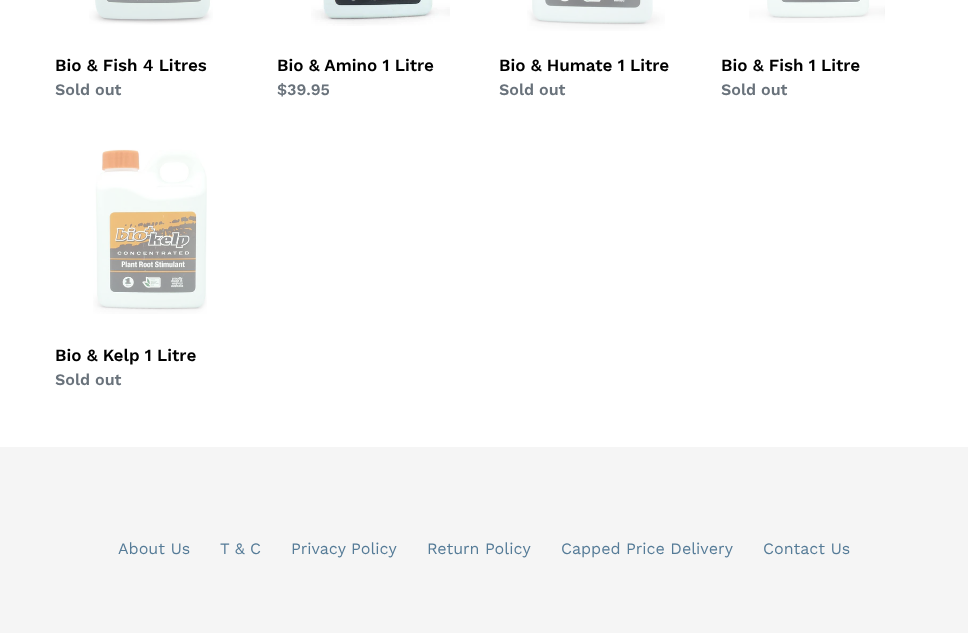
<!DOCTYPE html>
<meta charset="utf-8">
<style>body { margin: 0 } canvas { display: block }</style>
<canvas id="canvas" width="968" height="633"></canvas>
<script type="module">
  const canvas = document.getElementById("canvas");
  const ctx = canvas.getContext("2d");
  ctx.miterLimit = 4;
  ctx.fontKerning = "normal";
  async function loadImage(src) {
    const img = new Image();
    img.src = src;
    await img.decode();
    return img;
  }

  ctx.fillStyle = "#ffffff";
  ctx.fillRect(0, 0, 968, 633);
  ctx.drawImage(await loadImage("img1.png"), 89, 0, 124, 25);
  ctx.font = "600 17px Work Sans";
  ctx.fillStyle = "#000000";
  ctx.fillText("Bio & Fish 4 Litres", 55, 71);
  ctx.font = "600 16px Work Sans";
  ctx.fillStyle = "#69727b";
  ctx.fillText("Sold out", 55, 95);
  ctx.drawImage(await loadImage("img2.png"), 311, 0, 139, 26);
  ctx.font = "600 17px Work Sans";
  ctx.fillStyle = "#000000";
  ctx.fillText("Bio & Amino 1 Litre", 277, 71);
  ctx.font = "600 16px Work Sans";
  ctx.fillStyle = "#69727b";
  ctx.fillText("$39.95", 277, 95);
  ctx.drawImage(await loadImage("img3.png"), 527, 0, 138, 31);
  ctx.font = "600 17px Work Sans";
  ctx.fillStyle = "#000000";
  ctx.fillText("Bio & Humate 1 Litre", 499, 71);
  ctx.font = "600 16px Work Sans";
  ctx.fillStyle = "#69727b";
  ctx.fillText("Sold out", 499, 95);
  ctx.drawImage(await loadImage("img4.png"), 749, 0, 136, 23);
  ctx.font = "600 17px Work Sans";
  ctx.fillStyle = "#000000";
  ctx.fillText("Bio & Fish 1 Litre", 721, 71);
  ctx.font = "600 16px Work Sans";
  ctx.fillStyle = "#69727b";
  ctx.fillText("Sold out", 721, 95);
  ctx.drawImage(await loadImage("img5.png"), 93, 149, 114, 165);
  ctx.font = "600 17px Work Sans";
  ctx.fillStyle = "#000000";
  ctx.fillText("Bio & Kelp 1 Litre", 55, 361);
  ctx.font = "600 16px Work Sans";
  ctx.fillStyle = "#69727b";
  ctx.fillText("Sold out", 55, 385);
  ctx.fillStyle = "#f5f5f5";
  ctx.fillRect(0, 447, 968, 186);
  ctx.font = "16px Work Sans";
  ctx.fillStyle = "#557b97";
  ctx.fillText("About Us", 118, 554);
  ctx.fillText("T & C", 220, 554);
  ctx.fillText("Privacy Policy", 291, 554);
  ctx.fillText("Return Policy", 427, 554);
  ctx.fillText("Capped Price Delivery", 561, 554);
  ctx.fillText("Contact Us", 763, 554);
</script>
